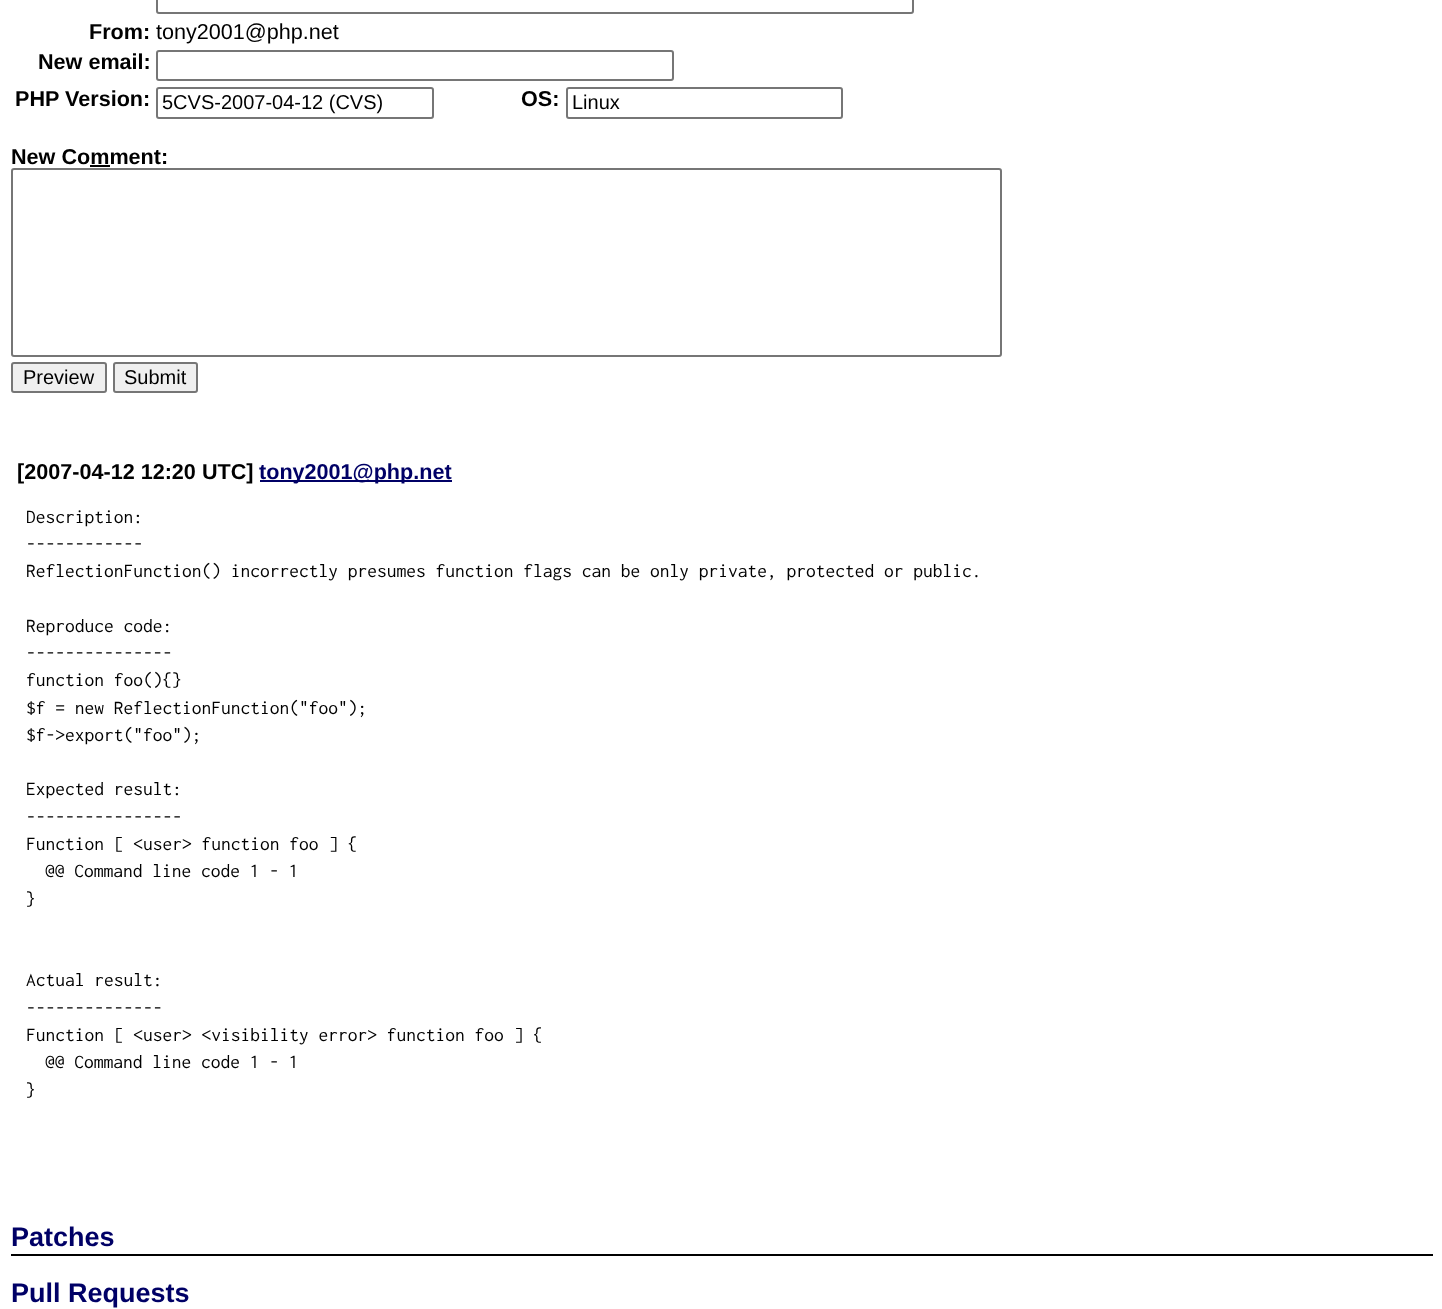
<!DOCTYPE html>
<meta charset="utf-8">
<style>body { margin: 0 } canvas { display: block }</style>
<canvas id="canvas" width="1442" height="1309"></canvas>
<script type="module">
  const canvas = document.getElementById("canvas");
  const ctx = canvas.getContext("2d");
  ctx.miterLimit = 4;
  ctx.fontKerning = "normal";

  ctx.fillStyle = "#ffffff";
  ctx.fillRect(0, 0, 1442, 1309);
  ctx.beginPath();
  ctx.roundRect(157, -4, 756, 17, 2);
  ctx.strokeStyle = "#767676";
  ctx.lineWidth = 2;
  ctx.stroke();
  ctx.font = "bold 21.6px Liberation Sans";
  ctx.fillStyle = "#000000";
  ctx.fillText("From:", 89, 39);
  ctx.font = "21.6px Liberation Sans";
  ctx.fillText("tony2001@php.net", 156, 39);
  ctx.font = "bold 21.6px Liberation Sans";
  ctx.fillText("New email:", 38, 69);
  ctx.beginPath();
  ctx.roundRect(157, 51, 516, 29, 2);
  ctx.stroke();
  ctx.fillText("PHP Version:", 15, 106);
  ctx.beginPath();
  ctx.roundRect(157, 88, 276, 30, 2);
  ctx.stroke();
  ctx.font = "20px Liberation Sans";
  ctx.fillText("5CVS-2007-04-12 (CVS)", 162, 109);
  ctx.font = "bold 21.6px Liberation Sans";
  ctx.fillText("OS:", 521, 106);
  ctx.beginPath();
  ctx.roundRect(567, 88, 275, 30, 2);
  ctx.stroke();
  ctx.font = "20px Liberation Sans";
  ctx.fillText("Linux", 572, 109);
  ctx.font = "bold 21.6px Liberation Sans";
  ctx.fillText("New Comment:", 11, 164);
  ctx.fillRect(90, 165, 20, 2);
  ctx.beginPath();
  ctx.roundRect(12, 169, 989, 187, 2);
  ctx.stroke();
  ctx.fillStyle = "#efefef";
  ctx.beginPath();
  ctx.roundRect(12, 363, 94, 29, 2);
  ctx.fill();
  ctx.stroke();
  ctx.font = "20px Liberation Sans";
  ctx.fillStyle = "#000000";
  ctx.fillText("Preview", 23, 384);
  ctx.fillStyle = "#efefef";
  ctx.beginPath();
  ctx.roundRect(114, 363, 83, 29, 2);
  ctx.fill();
  ctx.stroke();
  ctx.fillStyle = "#000000";
  ctx.fillText("Submit", 124, 384);
  ctx.font = "bold 21.6px Liberation Sans";
  ctx.fillText("[2007-04-12 12:20 UTC]", 17, 479);
  ctx.fillStyle = "#000066";
  ctx.fillRect(260, 480, 192, 2);
  ctx.fillText("tony2001@php.net", 259, 479);
  ctx.font = "19.5px Inconsolata";
  ctx.fillStyle = "#000000";
  ctx.fillText("Description:", 26, 523);
  ctx.fillText("------------", 26, 550);
  ctx.fillText("ReflectionFunction() incorrectly presumes function flags can be only private, protected or public.", 26, 577);
  ctx.fillText("Reproduce code:", 26, 632);
  ctx.fillText("---------------", 26, 659);
  ctx.fillText("function foo(){}", 26, 686);
  ctx.fillText("$f = new ReflectionFunction(\"foo\");", 26, 714);
  ctx.fillText("$f->export(\"foo\");", 26, 741);
  ctx.fillText("Expected result:", 26, 795);
  ctx.fillText("----------------", 26, 823);
  ctx.fillText("Function [ <user> function foo ] {", 26, 850);
  ctx.fillText("@@ Command line code 1 - 1", 45, 877);
  ctx.fillText("}", 26, 905);
  ctx.fillText("Actual result:", 26, 986);
  ctx.fillText("--------------", 26, 1014);
  ctx.fillText("Function [ <user> <visibility error> function foo ] {", 26, 1041);
  ctx.fillText("@@ Command line code 1 - 1", 45, 1068);
  ctx.fillText("}", 26, 1096);
  ctx.fillRect(11, 1254, 1422, 2);
  ctx.font = "bold 27px Liberation Sans";
  ctx.fillStyle = "#000066";
  ctx.fillText("Patches", 11, 1246);
  ctx.fillText("Pull Requests", 11, 1302);
</script>
